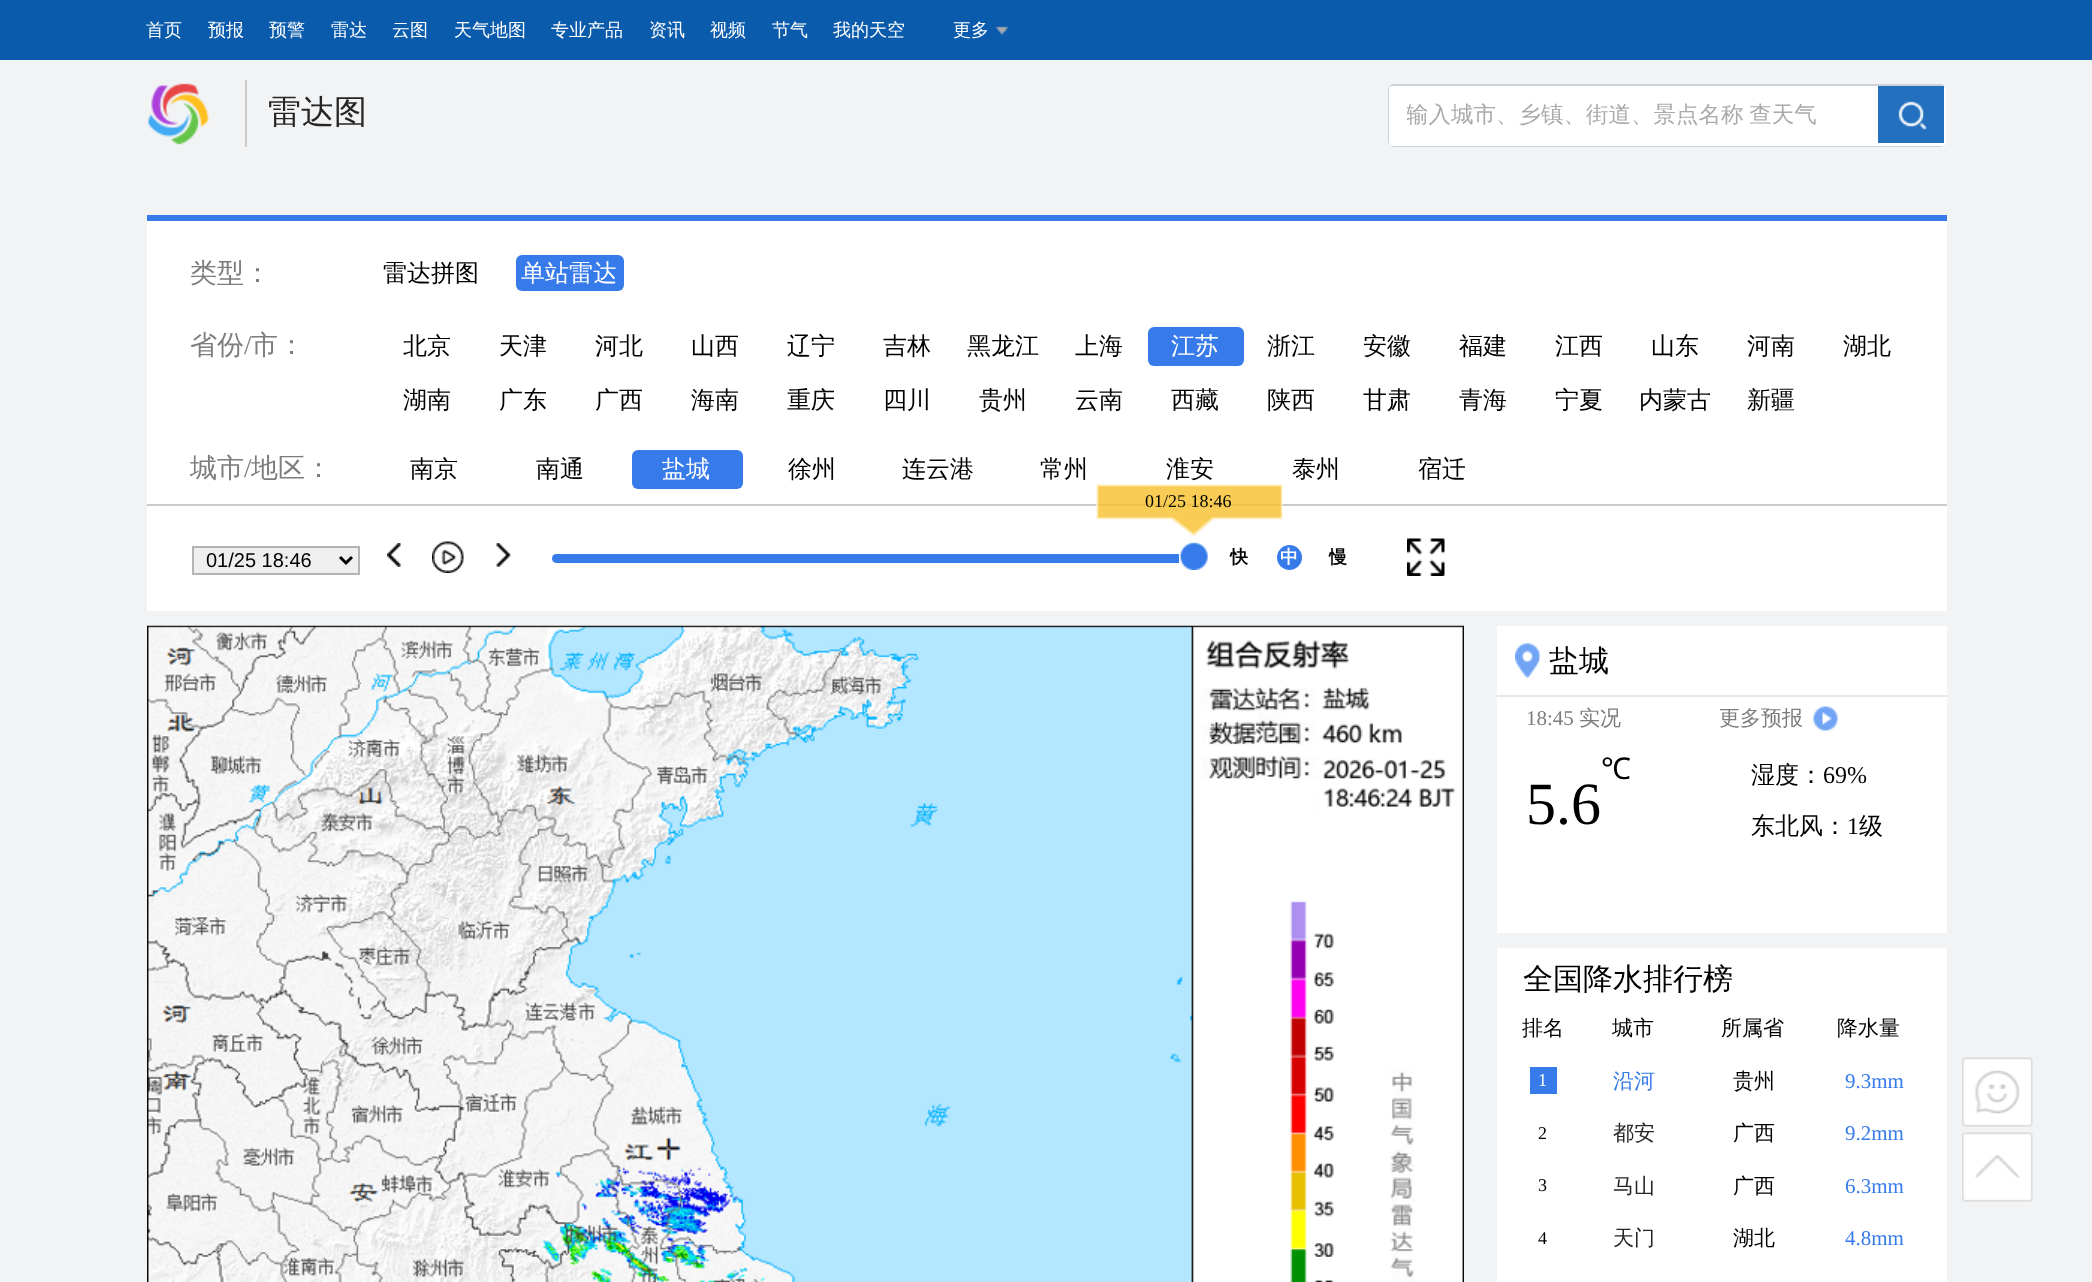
<!DOCTYPE html>
<meta charset="utf-8">
<style>body { margin: 0 } canvas { display: block }</style>
<canvas id="canvas" width="2092" height="1282"></canvas>
<script type="module">
  const canvas = document.getElementById("canvas");
  const ctx = canvas.getContext("2d");
  ctx.miterLimit = 4;
  ctx.fontKerning = "normal";
  async function loadImage(src) {
    const img = new Image();
    img.src = src;
    await img.decode();
    return img;
  }

  ctx.fillStyle = "#f1f3f5";
  ctx.fillRect(0, 0, 2092, 1282);
  ctx.fillStyle = "#0a5bac";
  ctx.fillRect(0, 0, 2092, 60);
  ctx.font = "500 18px WenQuanYi Zen Hei";
  ctx.fillStyle = "#ffffff";
  ctx.fillText("首页", 146, 36);
  ctx.fillText("预报", 208, 36);
  ctx.fillText("预警", 269, 36);
  ctx.fillText("雷达", 331, 36);
  ctx.fillText("云图", 392, 36);
  ctx.fillText("天气地图", 454, 36);
  ctx.fillText("专业产品", 551, 36);
  ctx.fillText("资讯", 649, 36);
  ctx.fillText("视频", 710, 36);
  ctx.fillText("节气", 772, 36);
  ctx.fillText("我的天空", 833, 36);
  ctx.drawImage(await loadImage("img1.png"), 995, 26, 14, 9);
  ctx.fillText("更多", 953, 36);
  ctx.drawImage(await loadImage("img2.png"), 148, 83, 61, 62);
  ctx.fillStyle = "#cccccc";
  ctx.fillRect(245, 80, 2, 67);
  ctx.font = "500 33px WenQuanYi Zen Hei";
  ctx.fillStyle = "#252525";
  ctx.fillText("雷达图", 268, 123);
  ctx.beginPath();
  ctx.roundRect(1389, 85, 556, 61, 5);
  ctx.strokeStyle = "#cad1d8";
  ctx.lineWidth = 2;
  ctx.stroke();
  ctx.fillStyle = "#ffffff";
  ctx.beginPath();
  ctx.roundRect(1389, 86, 557, 60, 3);
  ctx.fill();
  ctx.save();
  ctx.beginPath();
  ctx.rect(1407, 102, 494, 29);
  ctx.clip();
  ctx.wordSpacing = "-1px";
  ctx.font = "500 22.5px WenQuanYi Zen Hei";
  ctx.fillStyle = "#aaaaaa";
  ctx.fillText("输入城市、乡镇、街道、景点名称 查天气", 1406, 122);
  ctx.restore();
  ctx.fillStyle = "#2270be";
  ctx.fillRect(1878, 86, 66, 57);
  ctx.drawImage(await loadImage("img3.png"), 1898, 101, 29, 29);
  ctx.fillStyle = "#ffffff";
  ctx.fillRect(147, 221, 1800, 390);
  ctx.fillStyle = "#377beb";
  ctx.fillRect(147, 215, 1800, 6);
  ctx.font = "500 27px WenQuanYi Zen Hei";
  ctx.fillStyle = "#7d7d7d";
  ctx.fillText("类型：", 190, 282);
  ctx.font = "500 24px WenQuanYi Zen Hei";
  ctx.fillStyle = "#000000";
  ctx.fillText("雷达拼图", 383, 281);
  ctx.fillStyle = "#377beb";
  ctx.beginPath();
  ctx.roundRect(516, 255, 108, 36, 6);
  ctx.fill();
  ctx.fillStyle = "#ffffff";
  ctx.fillText("单站雷达", 521, 281);
  ctx.font = "500 27px WenQuanYi Zen Hei";
  ctx.fillStyle = "#7d7d7d";
  ctx.fillText("省份", 190, 354);
  ctx.font = "27px Liberation Serif";
  ctx.fillText("/", 244, 354);
  ctx.font = "500 27px WenQuanYi Zen Hei";
  ctx.fillText("市：", 251, 354);
  ctx.font = "500 24px WenQuanYi Zen Hei";
  ctx.fillStyle = "#000000";
  ctx.fillText("北京", 403, 354);
  ctx.fillText("天津", 499, 354);
  ctx.fillText("河北", 595, 354);
  ctx.fillText("山西", 691, 354);
  ctx.fillText("辽宁", 787, 354);
  ctx.fillText("吉林", 883, 354);
  ctx.fillText("黑龙江", 967, 354);
  ctx.fillText("上海", 1075, 354);
  ctx.fillStyle = "#377beb";
  ctx.beginPath();
  ctx.roundRect(1148, 327, 96, 39, 6);
  ctx.fill();
  ctx.fillStyle = "#ffffff";
  ctx.fillText("江苏", 1171, 354);
  ctx.fillStyle = "#000000";
  ctx.fillText("浙江", 1267, 354);
  ctx.fillText("安徽", 1363, 354);
  ctx.fillText("福建", 1459, 354);
  ctx.fillText("江西", 1555, 354);
  ctx.fillText("山东", 1651, 354);
  ctx.fillText("河南", 1747, 354);
  ctx.fillText("湖北", 1843, 354);
  ctx.fillText("湖南", 403, 408);
  ctx.fillText("广东", 499, 408);
  ctx.fillText("广西", 595, 408);
  ctx.fillText("海南", 691, 408);
  ctx.fillText("重庆", 787, 408);
  ctx.fillText("四川", 883, 408);
  ctx.fillText("贵州", 979, 408);
  ctx.fillText("云南", 1075, 408);
  ctx.fillText("西藏", 1171, 408);
  ctx.fillText("陕西", 1267, 408);
  ctx.fillText("甘肃", 1363, 408);
  ctx.fillText("青海", 1459, 408);
  ctx.fillText("宁夏", 1555, 408);
  ctx.fillText("内蒙古", 1639, 408);
  ctx.fillText("新疆", 1747, 408);
  ctx.font = "500 27px WenQuanYi Zen Hei";
  ctx.fillStyle = "#7d7d7d";
  ctx.fillText("城市", 190, 477);
  ctx.font = "27px Liberation Serif";
  ctx.fillText("/", 244, 477);
  ctx.font = "500 27px WenQuanYi Zen Hei";
  ctx.fillText("地区：", 251, 477);
  ctx.font = "500 24px WenQuanYi Zen Hei";
  ctx.fillStyle = "#000000";
  ctx.fillText("南京", 410, 477);
  ctx.fillText("南通", 536, 477);
  ctx.fillStyle = "#377beb";
  ctx.beginPath();
  ctx.roundRect(632, 450, 111, 39, 6);
  ctx.fill();
  ctx.fillStyle = "#ffffff";
  ctx.fillText("盐城", 662, 477);
  ctx.fillStyle = "#000000";
  ctx.fillText("徐州", 788, 477);
  ctx.fillText("连云港", 902, 477);
  ctx.fillText("常州", 1040, 477);
  ctx.fillText("淮安", 1166, 477);
  ctx.fillText("泰州", 1292, 477);
  ctx.fillText("宿迁", 1418, 477);
  ctx.fillStyle = "#cbcbcb";
  ctx.fillRect(147, 504, 1800, 2);
  ctx.fillStyle = "#377beb";
  ctx.beginPath();
  ctx.roundRect(552, 554, 633, 9, 4.5);
  ctx.fill();
  ctx.drawImage(await loadImage("img4.png"), 1179, 542, 29, 28);
  ctx.drawImage(await loadImage("img5.png"), 1096, 484, 187, 52);
  ctx.font = "18px Liberation Serif";
  ctx.fillStyle = "#000000";
  ctx.fillText("01/25 18:46", 1145, 507);
  ctx.drawImage(await loadImage("img6.png"), 387, 543, 14, 24);
  ctx.drawImage(await loadImage("img7.png"), 432, 541, 32, 32);
  ctx.drawImage(await loadImage("img8.png"), 496, 543, 15, 24);
  ctx.drawImage(await loadImage("img9.png"), 1407, 538, 38, 38);
  ctx.fillStyle = "#efefef";
  ctx.beginPath();
  ctx.rect(193, 547, 166, 27);
  ctx.fill();
  ctx.strokeStyle = "#b4b4b4";
  ctx.stroke();
  ctx.beginPath();
  ctx.moveTo(340, 557);
  ctx.lineTo(346, 563);
  ctx.lineTo(352, 557);
  ctx.strokeStyle = "#000000";
  ctx.lineWidth = 3;
  ctx.stroke();
  ctx.font = "20px Liberation Sans";
  ctx.fillStyle = "#000000";
  ctx.fillText("01/25 18:46", 206, 567);
  ctx.font = "bold 18px WenQuanYi Zen Hei";
  ctx.fillText("快", 1230, 563);
  ctx.fillStyle = "#377beb";
  ctx.beginPath();
  ctx.arc(1289.5, 557.5, 12.5, 0, Math.PI * 2);
  ctx.fill();
  ctx.fillStyle = "#ffffff";
  ctx.fillText("中", 1280, 563);
  ctx.fillStyle = "#000000";
  ctx.fillText("慢", 1329, 563);
  ctx.drawImage(await loadImage("img10.png"), 147, 625, 1317, 657);
  ctx.fillStyle = "#ffffff";
  ctx.fillRect(1497, 626, 450, 307);
  ctx.fillStyle = "#e8e8e8";
  ctx.fillRect(1497, 695, 450, 2);
  ctx.drawImage(await loadImage("img11.png"), 1515, 643, 26, 35);
  ctx.font = "500 30px WenQuanYi Zen Hei";
  ctx.fillStyle = "#000000";
  ctx.fillText("盐城", 1549, 671);
  ctx.font = "21px Liberation Serif";
  ctx.fillStyle = "#7d7d7d";
  ctx.fillText("18:45", 1526, 725);
  ctx.font = "500 21px WenQuanYi Zen Hei";
  ctx.fillText("实况", 1579, 725);
  ctx.fillText("更多预报", 1719, 725);
  ctx.drawImage(await loadImage("img12.png"), 1813, 706, 25, 25);
  ctx.font = "30px Noto Sans";
  ctx.fillStyle = "#000000";
  ctx.fillText("℃", 1601, 779);
  ctx.font = "60px Liberation Serif";
  ctx.fillText("5.6", 1526, 824);
  ctx.font = "500 24px WenQuanYi Zen Hei";
  ctx.fillText("湿度：", 1751, 783);
  ctx.font = "24px Liberation Serif";
  ctx.fillText("69%", 1823, 783);
  ctx.font = "500 24px WenQuanYi Zen Hei";
  ctx.fillText("东北风：", 1751, 834);
  ctx.font = "24px Liberation Serif";
  ctx.fillText("1", 1847, 834);
  ctx.font = "500 24px WenQuanYi Zen Hei";
  ctx.fillText("级", 1859, 834);
  ctx.fillStyle = "#ffffff";
  ctx.fillRect(1497, 948, 450, 334);
  ctx.font = "500 30px WenQuanYi Zen Hei";
  ctx.fillStyle = "#000000";
  ctx.fillText("全国降水排行榜", 1523, 989);
  ctx.font = "500 21px WenQuanYi Zen Hei";
  ctx.fillText("排名", 1522, 1035);
  ctx.fillText("城市", 1612, 1035);
  ctx.fillText("所属省", 1721, 1035);
  ctx.fillText("降水量", 1837, 1035);
  ctx.fillStyle = "#377beb";
  ctx.fillRect(1530, 1067, 27, 27);
  ctx.font = "18px Liberation Serif";
  ctx.fillStyle = "#ffffff";
  ctx.fillText("1", 1538, 1086);
  ctx.font = "500 21px WenQuanYi Zen Hei";
  ctx.fillStyle = "#377beb";
  ctx.fillText("沿河", 1613, 1088);
  ctx.fillStyle = "#000000";
  ctx.fillText("贵州", 1733, 1088);
  ctx.font = "21px Liberation Serif";
  ctx.fillStyle = "#377beb";
  ctx.fillText("9.3mm", 1845, 1088);
  ctx.font = "18px Liberation Serif";
  ctx.fillStyle = "#000000";
  ctx.fillText("2", 1538, 1139);
  ctx.font = "500 21px WenQuanYi Zen Hei";
  ctx.fillStyle = "#252525";
  ctx.fillText("都安", 1613, 1140);
  ctx.fillStyle = "#000000";
  ctx.fillText("广西", 1733, 1140);
  ctx.font = "21px Liberation Serif";
  ctx.fillStyle = "#377beb";
  ctx.fillText("9.2mm", 1845, 1140);
  ctx.font = "18px Liberation Serif";
  ctx.fillStyle = "#000000";
  ctx.fillText("3", 1538, 1191);
  ctx.font = "500 21px WenQuanYi Zen Hei";
  ctx.fillStyle = "#252525";
  ctx.fillText("马山", 1613, 1193);
  ctx.fillStyle = "#000000";
  ctx.fillText("广西", 1733, 1193);
  ctx.font = "21px Liberation Serif";
  ctx.fillStyle = "#377beb";
  ctx.fillText("6.3mm", 1845, 1193);
  ctx.font = "18px Liberation Serif";
  ctx.fillStyle = "#000000";
  ctx.fillText("4", 1538, 1244);
  ctx.font = "500 21px WenQuanYi Zen Hei";
  ctx.fillStyle = "#252525";
  ctx.fillText("天门", 1613, 1245);
  ctx.fillStyle = "#000000";
  ctx.fillText("湖北", 1733, 1245);
  ctx.font = "21px Liberation Serif";
  ctx.fillStyle = "#377beb";
  ctx.fillText("4.8mm", 1845, 1245);
  ctx.drawImage(await loadImage("img13.png"), 1962, 1057, 71, 70);
  ctx.drawImage(await loadImage("img14.png"), 1962, 1132, 71, 70);
</script>
